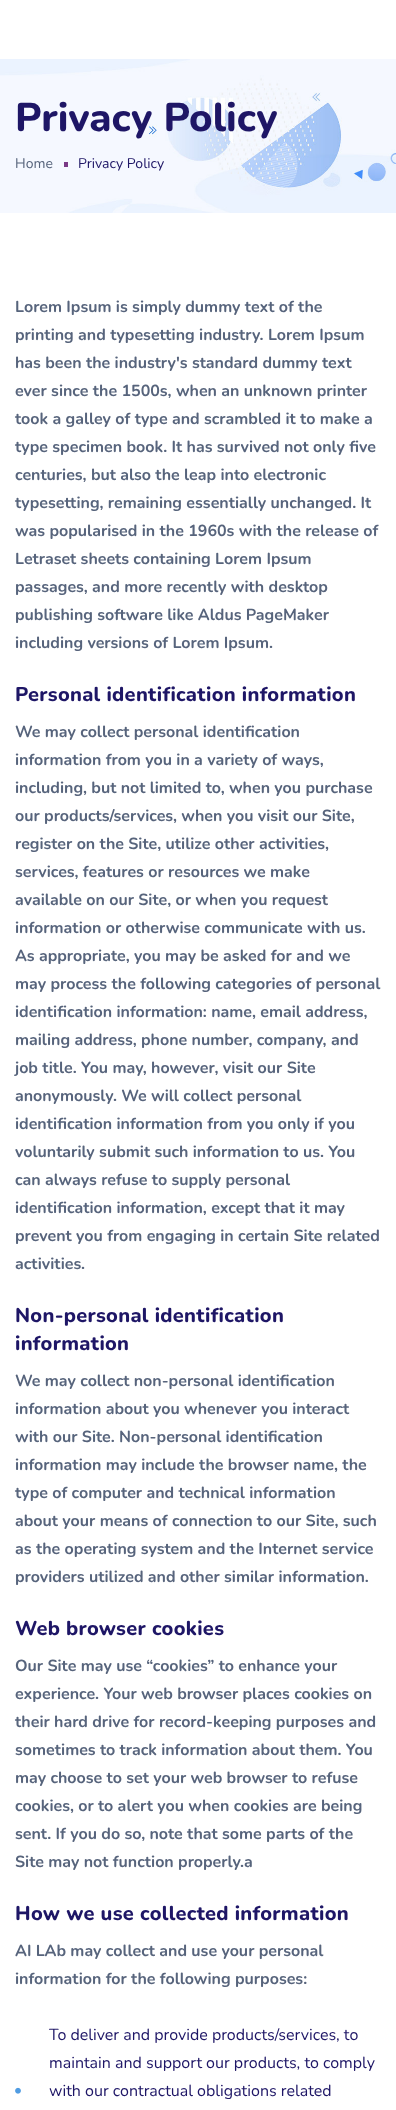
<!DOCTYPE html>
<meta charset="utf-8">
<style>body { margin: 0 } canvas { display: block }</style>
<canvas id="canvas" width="396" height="2110"></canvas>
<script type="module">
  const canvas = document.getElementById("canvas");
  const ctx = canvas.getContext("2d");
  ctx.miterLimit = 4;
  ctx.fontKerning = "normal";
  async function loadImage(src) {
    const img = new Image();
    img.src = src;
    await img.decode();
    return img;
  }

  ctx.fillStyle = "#ffffff";
  ctx.fillRect(0, 0, 396, 2110);
  ctx.drawImage(await loadImage("img1.png"), 0, 59, 396, 154);
  ctx.font = "800 40px Nunito";
  ctx.fillStyle = "#1e1666";
  ctx.fillText("Privacy Policy", 15, 131);
  ctx.font = "14px Nunito";
  ctx.fillStyle = "#57647c";
  ctx.fillText("Home", 15, 168);
  ctx.fillStyle = "#7a3986";
  ctx.fillRect(64, 162, 4, 5);
  ctx.fillStyle = "#1e1666";
  ctx.fillText("Privacy Policy", 78, 168);
  ctx.font = "bold 16px Nunito";
  ctx.fillStyle = "#57647c";
  ctx.fillText("Lorem Ipsum is simply dummy text of the", 15, 312);
  ctx.fillText("printing and typesetting industry. Lorem Ipsum", 15, 340);
  ctx.fillText("has been the industry's standard dummy text", 15, 368);
  ctx.fillText("ever since the 1500s, when an unknown printer", 15, 396);
  ctx.fillText("took a galley of type and scrambled it to make a", 15, 424);
  ctx.fillText("type specimen book. It has survived not only five", 15, 452);
  ctx.fillText("centuries, but also the leap into electronic", 15, 480);
  ctx.fillText("typesetting, remaining essentially unchanged. It", 15, 508);
  ctx.fillText("was popularised in the 1960s with the release of", 15, 536);
  ctx.fillText("Letraset sheets containing Lorem Ipsum", 15, 564);
  ctx.fillText("passages, and more recently with desktop", 15, 592);
  ctx.fillText("publishing software like Aldus PageMaker", 15, 620);
  ctx.fillText("including versions of Lorem Ipsum.", 15, 648);
  ctx.letterSpacing = "0.3px";
  ctx.font = "800 20px Nunito";
  ctx.fillStyle = "#1e1666";
  ctx.fillText("Personal identification information", 15, 701);
  ctx.letterSpacing = "0px";
  ctx.font = "bold 16px Nunito";
  ctx.fillStyle = "#57647c";
  ctx.fillText("We may collect personal identification", 15, 737);
  ctx.fillText("information from you in a variety of ways,", 15, 765);
  ctx.fillText("including, but not limited to, when you purchase", 15, 793);
  ctx.fillText("our products/services, when you visit our Site,", 15, 821);
  ctx.fillText("register on the Site, utilize other activities,", 15, 849);
  ctx.fillText("services, features or resources we make", 15, 877);
  ctx.fillText("available on our Site, or when you request", 15, 905);
  ctx.fillText("information or otherwise communicate with us.", 15, 933);
  ctx.fillText("As appropriate, you may be asked for and we", 15, 961);
  ctx.fillText("may process the following categories of personal", 15, 989);
  ctx.fillText("identification information: name, email address,", 15, 1017);
  ctx.fillText("mailing address, phone number, company, and", 15, 1045);
  ctx.fillText("job title. You may, however, visit our Site", 15, 1073);
  ctx.fillText("anonymously. We will collect personal", 15, 1101);
  ctx.fillText("identification information from you only if you", 15, 1129);
  ctx.fillText("voluntarily submit such information to us. You", 15, 1157);
  ctx.fillText("can always refuse to supply personal", 15, 1185);
  ctx.fillText("identification information, except that it may", 15, 1213);
  ctx.fillText("prevent you from engaging in certain Site related", 15, 1241);
  ctx.fillText("activities.", 15, 1269);
  ctx.letterSpacing = "0.3px";
  ctx.font = "800 20px Nunito";
  ctx.fillStyle = "#1e1666";
  ctx.fillText("Non-personal identification", 15, 1322);
  ctx.fillText("information", 15, 1350);
  ctx.letterSpacing = "0px";
  ctx.font = "bold 16px Nunito";
  ctx.fillStyle = "#57647c";
  ctx.fillText("We may collect non-personal identification", 15, 1386);
  ctx.fillText("information about you whenever you interact", 15, 1414);
  ctx.fillText("with our Site. Non-personal identification", 15, 1442);
  ctx.fillText("information may include the browser name, the", 15, 1470);
  ctx.fillText("type of computer and technical information", 15, 1498);
  ctx.fillText("about your means of connection to our Site, such", 15, 1526);
  ctx.fillText("as the operating system and the Internet service", 15, 1554);
  ctx.fillText("providers utilized and other similar information.", 15, 1582);
  ctx.letterSpacing = "0.3px";
  ctx.font = "800 20px Nunito";
  ctx.fillStyle = "#1e1666";
  ctx.fillText("Web browser cookies", 15, 1635);
  ctx.letterSpacing = "0px";
  ctx.font = "bold 16px Nunito";
  ctx.fillStyle = "#57647c";
  ctx.fillText("Our Site may use “cookies” to enhance your", 15, 1671);
  ctx.fillText("experience. Your web browser places cookies on", 15, 1699);
  ctx.fillText("their hard drive for record-keeping purposes and", 15, 1727);
  ctx.fillText("sometimes to track information about them. You", 15, 1755);
  ctx.fillText("may choose to set your web browser to refuse", 15, 1783);
  ctx.fillText("cookies, or to alert you when cookies are being", 15, 1811);
  ctx.fillText("sent. If you do so, note that some parts of the", 15, 1839);
  ctx.fillText("Site may not function properly.a", 15, 1867);
  ctx.letterSpacing = "0.3px";
  ctx.font = "800 20px Nunito";
  ctx.fillStyle = "#1e1666";
  ctx.fillText("How we use collected information", 15, 1920);
  ctx.letterSpacing = "0px";
  ctx.font = "bold 16px Nunito";
  ctx.fillStyle = "#57647c";
  ctx.fillText("AI LAb may collect and use your personal", 15, 1956);
  ctx.fillText("information for the following purposes:", 15, 1984);
  ctx.drawImage(await loadImage("img2.png"), 15, 2087, 6, 7);
  ctx.font = "16px Nunito";
  ctx.fillStyle = "#1e1666";
  ctx.fillText("To deliver and provide products/services, to", 49, 2040);
  ctx.fillText("maintain and support our products, to comply", 49, 2068);
  ctx.fillText("with our contractual obligations related", 49, 2096);
</script>
